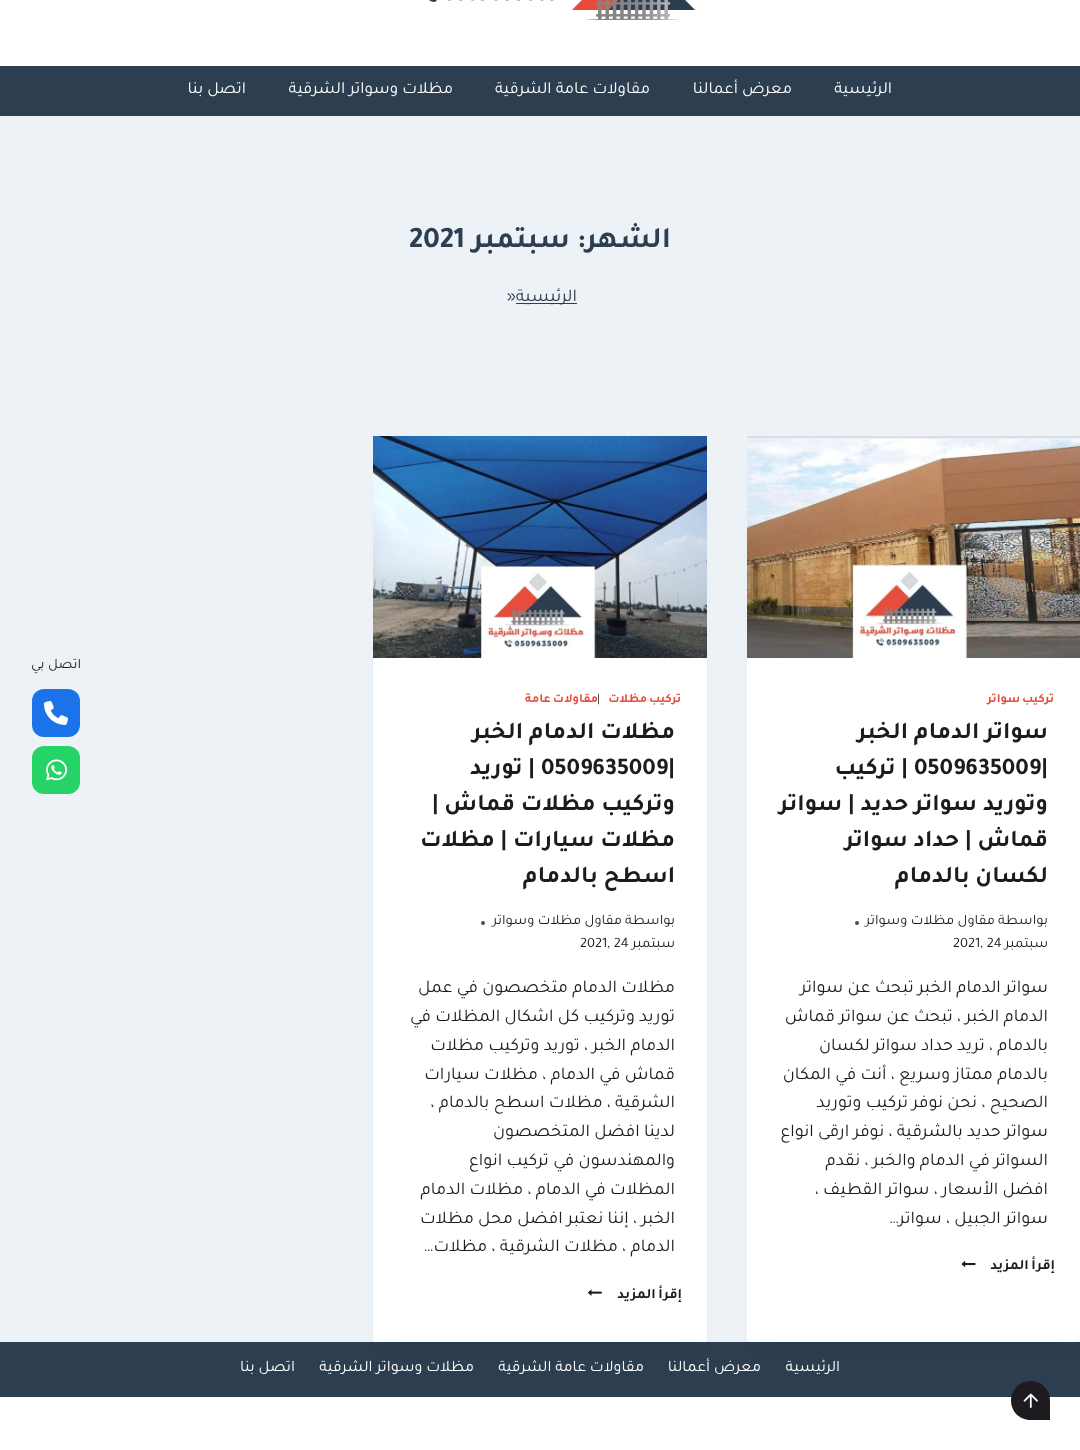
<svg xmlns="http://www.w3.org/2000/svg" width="1080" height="1450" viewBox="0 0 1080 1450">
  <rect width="100%" height="100%" fill="#edf2f7"/>
  <path d="M0 0h1080v66H0z" fill="#fff"/>
  <image x="429" y="0" width="266" height="20" href="img/1.png"/>
  <path d="M0 66h1080v50H0z" fill="#2c3e50"/>
  <path d="M516 303h61v1H516z" fill="#2c3e50"/>
  <path d="M0 1342h1080v55H0z" fill="#2c3e50"/>
  <path d="M757 461h313v886H757z" fill="#0000000d" filter="blur(7.5px)"/>
  <rect x="747" y="436" width="333" height="906" rx="4" fill="#fff"/>
  <image x="747" y="436" width="333" height="222" href="img/2.png"/>
  <circle cx="857" cy="923" r="2" fill="#4a494c"/>
  <image x="961" y="1261" width="15" height="6" href="img/3.png"/>
  <path d="M383 461h314v886H383z" fill="#0000000d" filter="blur(7.5px)"/>
  <rect x="373" y="436" width="334" height="906" rx="4" fill="#fff"/>
  <image x="373" y="436" width="334" height="222" href="img/4.png"/>
  <circle cx="483" cy="923" r="2" fill="#4a494c"/>
  <image x="588" y="1289" width="14" height="7" href="img/5.png"/>
  <path d="M0 1397h1080v53H0z" fill="#fff"/>
  <rect x="32" y="689" width="48" height="48" rx="12" fill="#1a73e8"/>
  <image x="44" y="701" width="24" height="24" href="img/6.png"/>
  <rect x="32" y="746" width="48" height="48" rx="12" fill="#25d366"/>
  <image x="46" y="759" width="21" height="22" href="img/7.png"/>
  <path d="M1030.5 1381C1041.5 1381 1050 1389.5 1050 1400.5V1420H1030.5C1019.5 1420 1011 1411.5 1011 1400.5C1011 1389.5 1019.5 1381 1030.5 1381Z" fill="#1d1b1f"/>
  <image x="1023" y="1393" width="15" height="15" href="img/8.png"/>
  <g font-family="Tajawal" font-size="17" direction="rtl" fill="#fff">
    <text x="892" y="93">الرئيسية</text>
    <text x="792" y="93">معرض أعمالنا</text>
    <text x="650" y="93">مقاولات عامة الشرقية</text>
    <text x="453" y="93">مظلات وسواتر الشرقية</text>
    <text x="246" y="93">اتصل بنا</text>
  </g>
  <text x="671" y="247" font-family="Tajawal" font-size="30" font-weight="bold" direction="rtl" fill="#2c3e50">الشهر: سبتمبر</text>
  <text x="409" y="247" font-family="Tajawal" font-size="30" font-weight="bold" fill="#2c3e50">2021</text>
  <text x="577" y="301" font-family="Tajawal" font-size="18" direction="rtl" fill="#2c3e50">الرئيسية</text>
  <text x="507" y="301" font-family="Tajawal" font-size="18" fill="#2c3e50">»</text>
  <text x="1054" y="702" word-spacing="-1" font-family="Tajawal" font-size="12.5" font-weight="bold" letter-spacing="0.6" direction="rtl" fill="#e74c3c">تركيب سواتر</text>
  <text x="1048" y="738" font-family="Tajawal" font-size="24" font-weight="bold" direction="rtl" fill="#1d1b1f">سواتر الدمام الخبر</text>
  <text x="914" y="774" font-family="Tajawal" font-size="24" font-weight="bold" fill="#1d1b1f">0509635009|</text>
  <g font-family="Tajawal" font-size="24" font-weight="bold" direction="rtl" fill="#1d1b1f">
    <text x="908" y="774">| تركيب</text>
    <text x="1048" y="810">وتوريد سواتر حديد | سواتر</text>
    <text x="1048" y="846">قماش | حداد سواتر</text>
    <text x="1048" y="882">لكسان بالدمام</text>
  </g>
  <g font-family="Tajawal" font-size="14.5" direction="rtl" fill="#1d1b1f">
    <text x="1048" y="924">بواسطة</text>
    <text x="995" y="924">مقاول مظلات وسواتر</text>
    <text x="1048" y="947">سبتمبر</text>
  </g>
  <text x="953" y="947" font-family="Tajawal" font-size="14.5" fill="#1d1b1f">2021, 24</text>
  <g font-family="Tajawal" font-size="18" direction="rtl" fill="#1d1b1f">
    <text x="1048" y="992">سواتر الدمام الخبر تبحث عن سواتر</text>
    <text x="1048" y="1021">الدمام الخبر ، تبحث عن سواتر قماش</text>
    <text x="1048" y="1050">بالدمام ، تريد حداد سواتر لكسان</text>
    <text x="1048" y="1079">بالدمام ممتاز وسريع ، أنت في المكان</text>
    <text x="1048" y="1107">الصحيح ، نحن نوفر تركيب وتوريد</text>
    <text x="1048" y="1136">سواتر حديد بالشرقية ، نوفر ارقى انواع</text>
    <text x="1048" y="1165">السواتر في الدمام والخبر ، نقدم</text>
    <text x="1048" y="1194">افضل الأسعار ، سواتر القطيف ،</text>
    <text x="1048" y="1223">سواتر الجبيل ، سواتر…</text>
  </g>
  <text x="1055" y="1269" word-spacing="-1" font-family="Tajawal" font-size="14.5" font-weight="bold" letter-spacing="0.75" direction="rtl" fill="#1d1b1f">إقرأ المزيد</text>
  <text x="681" y="702" word-spacing="-1" font-family="Tajawal" font-size="12.5" font-weight="bold" letter-spacing="0.6" direction="rtl" fill="#e74c3c">تركيب مظلات</text>
  <text x="597" y="702" font-family="Tajawal" font-size="12.5" letter-spacing="0.6" fill="#1d1b1f">|</text>
  <text x="598" y="702" word-spacing="-1" font-family="Tajawal" font-size="12.5" font-weight="bold" letter-spacing="0.6" direction="rtl" fill="#e74c3c">مقاولات عامة</text>
  <text x="675" y="738" font-family="Tajawal" font-size="24" font-weight="bold" direction="rtl" fill="#1d1b1f">مظلات الدمام الخبر</text>
  <text x="541" y="774" font-family="Tajawal" font-size="24" font-weight="bold" fill="#1d1b1f">0509635009|</text>
  <g font-family="Tajawal" font-size="24" font-weight="bold" direction="rtl" fill="#1d1b1f">
    <text x="535" y="774">| توريد</text>
    <text x="675" y="810">وتركيب مظلات قماش |</text>
    <text x="675" y="846">مظلات سيارات | مظلات</text>
    <text x="675" y="882">اسطح بالدمام</text>
  </g>
  <g font-family="Tajawal" font-size="14.5" direction="rtl" fill="#1d1b1f">
    <text x="675" y="924">بواسطة</text>
    <text x="622" y="924">مقاول مظلات وسواتر</text>
    <text x="675" y="947">سبتمبر</text>
  </g>
  <text x="580" y="947" font-family="Tajawal" font-size="14.5" fill="#1d1b1f">2021, 24</text>
  <g font-family="Tajawal" font-size="18" direction="rtl" fill="#1d1b1f">
    <text x="675" y="992">مظلات الدمام متخصصون في عمل</text>
    <text x="675" y="1021">توريد وتركيب كل اشكال المظلات في</text>
    <text x="675" y="1050">الدمام الخبر ، توريد وتركيب مظلات</text>
    <text x="675" y="1079">قماش في الدمام ، مظلات سيارات</text>
    <text x="675" y="1107">الشرقية ، مظلات اسطح بالدمام ،</text>
    <text x="675" y="1136">لدينا افضل المتخصصون</text>
    <text x="675" y="1165">والمهندسون في تركيب انواع</text>
    <text x="675" y="1194">المظلات في الدمام ، مظلات الدمام</text>
    <text x="675" y="1223">الخبر ، إننا نعتبر افضل محل مظلات</text>
    <text x="675" y="1251">الدمام ، مظلات الشرقية ، مظلات…</text>
  </g>
  <text x="682" y="1298" word-spacing="-1" font-family="Tajawal" font-size="14.5" font-weight="bold" letter-spacing="0.75" direction="rtl" fill="#1d1b1f">إقرأ المزيد</text>
  <g font-family="Tajawal" font-size="16" direction="rtl" fill="#fff">
    <text x="840" y="1371">الرئيسية</text>
    <text x="761" y="1371">معرض أعمالنا</text>
    <text x="644" y="1371">مقاولات عامة الشرقية</text>
    <text x="474" y="1371">مظلات وسواتر الشرقية</text>
    <text x="295" y="1371">اتصل بنا</text>
  </g>
  <text x="81" y="668" font-family="Tajawal" font-size="14.5" direction="rtl" fill="#1d1b1f">اتصل بي</text>
</svg>
